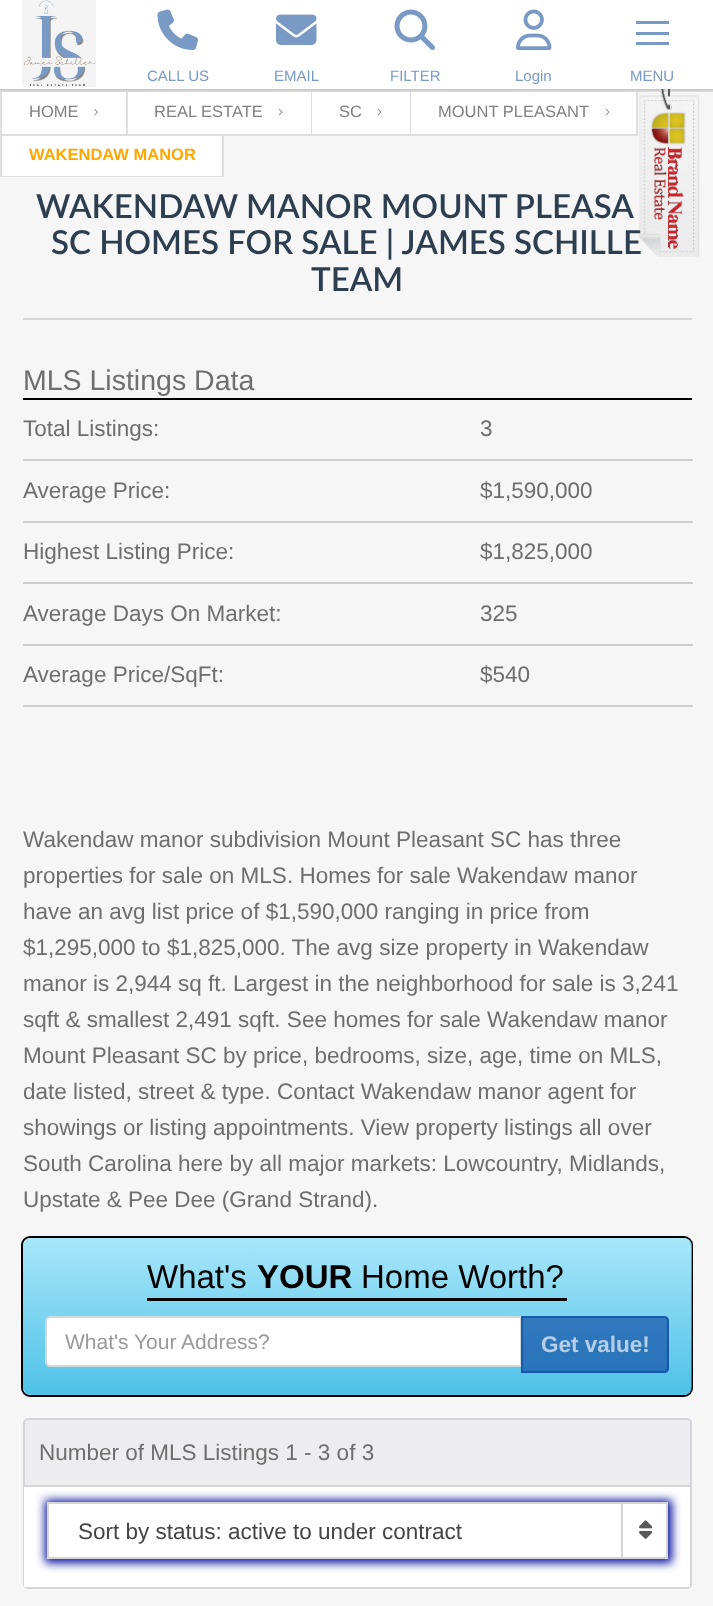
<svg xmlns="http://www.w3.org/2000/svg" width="713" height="1606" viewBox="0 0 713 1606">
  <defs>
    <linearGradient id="g1" gradientUnits="userSpaceOnUse" x1="357" y1="1238" x2="357" y2="1395"><stop offset="0" stop-color="#87e0fd" stop-opacity="0.7"/><stop offset="0.4" stop-color="#53cbf1" stop-opacity="0.7"/><stop offset="1" stop-color="#05abe0" stop-opacity="0.7"/></linearGradient>
  </defs>
  <rect width="100%" height="100%" fill="#f6f6f6"/>
  <path d="M0 91h713v1H0z" fill="#dedede"/>
  <path d="M126 90h2v45H126z" fill="#dedede"/>
  <path d="M311 90h1v45H311z" fill="#dedede"/>
  <path d="M410 90h1v45H410z" fill="#dedede"/>
  <path d="M636 90h2v45H636z" fill="#dedede"/>
  <path d="M0 89h713v2H0z" fill="#ccc"/>
  <path d="M0 0h713v89H0z" fill="#fff"/>
  <image x="22" y="0" width="74" height="87" href="img/1.png"/>
  <image x="157" y="9" width="41" height="42" href="img/2.png"/>
  <image x="276" y="14" width="41" height="31" href="img/3.png"/>
  <image x="394" y="9" width="41" height="41" href="img/4.png"/>
  <image x="516" y="9" width="36" height="42" href="img/5.png"/>
  <path d="M636 32h33v3H636z" fill="#799ac4"/>
  <path d="M636 21h33v3H636z" fill="#799ac4"/>
  <path d="M636 42h33v3H636z" fill="#799ac4"/>
  <path d="M0 92h2v85H0z" fill="#dedede"/>
  <path d="M2 92h124v42H2z" fill="#fff"/>
  <image x="94" y="109" width="4" height="7" href="img/7.png"/>
  <path d="M128 92h183v42H128z" fill="#fff"/>
  <path d="M2 134h310v2H2z" fill="#dedede"/>
  <image x="278" y="109" width="5" height="7" href="img/8.png"/>
  <path d="M312 92h98v42H312z" fill="#fff"/>
  <path d="M312 134h99v2H312z" fill="#dedede"/>
  <image x="377" y="109" width="5" height="7" href="img/8.png"/>
  <path d="M411 92h225v42H411z" fill="#fff"/>
  <path d="M411 134h227v2H411z" fill="#dedede"/>
  <image x="605" y="109" width="5" height="7" href="img/8.png"/>
  <path d="M2 136h220v40H2z" fill="#fff"/>
  <path d="M222 134h2v43H222z" fill="#dedede"/>
  <path d="M2 176h222v1H2z" fill="#dedede"/>
  <path d="M23 318h669v2H23z" fill="#d6d6d6"/>
  <path d="M23 398h669v2H23z" fill="#000"/>
  <path d="M23 459h670v2H23z" fill="#cdcdcd"/>
  <path d="M23 521h670v2H23z" fill="#cdcdcd"/>
  <path d="M23 582h670v2H23z" fill="#cdcdcd"/>
  <path d="M23 644h670v2H23z" fill="#cdcdcd"/>
  <path d="M23 705h670v2H23z" fill="#cdcdcd"/>
  <rect x="22" y="1237" width="670" height="159" rx="8" fill="none" stroke="#000" stroke-width="2"/>
  <rect x="23" y="1238" width="669" height="157" rx="8" fill="url(#g1)"/>
  <path d="M147 1298h420v3H147z" fill="#000"/>
  <path d="M50 1317H521V1366H50C48 1366 46 1364 46 1362V1321C46 1319 48 1317 50 1317Z" fill="#fff" stroke="#cfdadd" stroke-width="2"/>
  <path d="M521 1316H664C667 1316 669 1318 669 1321V1368C669 1371 667 1373 664 1373H521Z" fill="#0d47a1a6"/>
  <path d="M522 1317H664C666 1317 668 1319 668 1321V1368C668 1370 666 1372 664 1372H522Z" fill="none" stroke="#0d47a1a6" stroke-width="2"/>
  <rect x="24" y="1419" width="667" height="169" rx="4" fill="#ededef" stroke="#d3d5d9" stroke-width="2"/>
  <path d="M24 1485h666v2H24z" fill="#d3d5d9"/>
  <path d="M24 1487h666v100H24z" fill="#fff"/>
  <path d="M45 1500h627v63H45z" fill="#06109b" filter="blur(5px)"/>
  <path d="M48 1503h619v55H48z" fill="#fff" stroke="#d6d6d6" stroke-width="2"/>
  <path d="M621 1503h2v54H621z" fill="#d6d6d6"/>
  <image x="639" y="1520" width="14" height="19" href="img/9.png"/>
  <g font-family="Liberation Sans" font-size="15" fill="#799ac4">
    <text x="147" y="81">CALL US</text>
    <text x="274" y="81">EMAIL</text>
    <text x="390" y="81">FILTER</text>
    <text x="515" y="81">Login</text>
    <text x="630" y="81">MENU</text>
  </g>
  <g font-family="Liberation Sans" font-size="16.5" fill="#808080">
    <text x="29" y="117">HOME</text>
    <text x="154" y="117">REAL ESTATE</text>
    <text x="339" y="117">SC</text>
    <text x="438" y="117">MOUNT PLEASANT</text>
  </g>
  <text x="29" y="160" font-family="Liberation Sans" font-size="16.5" font-weight="bold" fill="#ffa700">WAKENDAW MANOR</text>
  <g font-family="Lato" font-size="33" font-weight="600" fill="#2c3e50">
    <text x="36" y="218">WAKENDAW MANOR MOUNT PLEASA</text>
    <text x="51" y="254">SC HOMES FOR SALE | JAMES SCHILLE</text>
  </g>
  <image x="639" y="89" width="61" height="168" href="img/6.png"/>
  <text x="311" y="291" font-family="Lato" font-size="33" font-weight="600" fill="#2c3e50">TEAM</text>
  <text x="23" y="390" font-family="Liberation Sans" font-size="28.5" fill="#6e6e6e">MLS Listings Data</text>
  <g font-family="Liberation Sans" font-size="22.5" fill="#6e6e6e">
    <text x="23" y="436">Total Listings:</text>
    <text x="480" y="436">3</text>
    <text x="23" y="498">Average Price:</text>
    <text x="480" y="498">$1,590,000</text>
    <text x="23" y="559">Highest Listing Price:</text>
    <text x="480" y="559">$1,825,000</text>
    <text x="23" y="621">Average Days On Market:</text>
    <text x="480" y="621">325</text>
    <text x="23" y="682">Average Price/SqFt:</text>
    <text x="480" y="682">$540</text>
    <text x="23" y="847">Wakendaw manor subdivision Mount Pleasant SC has three</text>
    <text x="23" y="883">properties for sale on MLS. Homes for sale Wakendaw manor</text>
    <text x="23" y="919">have an avg list price of $1,590,000 ranging in price from</text>
    <text x="23" y="955">$1,295,000 to $1,825,000. The avg size property in Wakendaw</text>
    <text x="23" y="991">manor is 2,944 sq ft. Largest in the neighborhood for sale is 3,241</text>
    <text x="23" y="1027">sqft &amp; smallest 2,491 sqft. See homes for sale Wakendaw manor</text>
    <text x="23" y="1063">Mount Pleasant SC by price, bedrooms, size, age, time on MLS,</text>
    <text x="23" y="1099">date listed, street &amp; type. Contact Wakendaw manor agent for</text>
    <text x="23" y="1135">showings or listing appointments. View property listings all over</text>
    <text x="23" y="1171">South Carolina here by all major markets: Lowcountry, Midlands,</text>
    <text x="23" y="1207">Upstate &amp; Pee Dee (Grand Strand).</text>
  </g>
  <text x="147" y="1288" font-family="Liberation Sans" font-size="33" fill="#000">What's</text>
  <text x="257" y="1288" font-family="Liberation Sans" font-size="33" font-weight="bold" fill="#000">YOUR</text>
  <text x="361" y="1288" font-family="Liberation Sans" font-size="33" fill="#000">Home Worth?</text>
  <text x="65" y="1349" font-family="Liberation Sans" font-size="21" fill="#999">What's Your Address?</text>
  <text x="541" y="1352" font-family="Liberation Sans" font-size="22.5" font-weight="bold" fill="#b6cfe7">Get value!</text>
  <text x="39" y="1460" font-family="Liberation Sans" font-size="22.5" fill="#6e6e6e">Number of MLS Listings 1 - 3 of 3</text>
  <text x="78" y="1539" font-family="Liberation Sans" font-size="22.5" fill="#444">Sort by status: active to under contract</text>
</svg>
